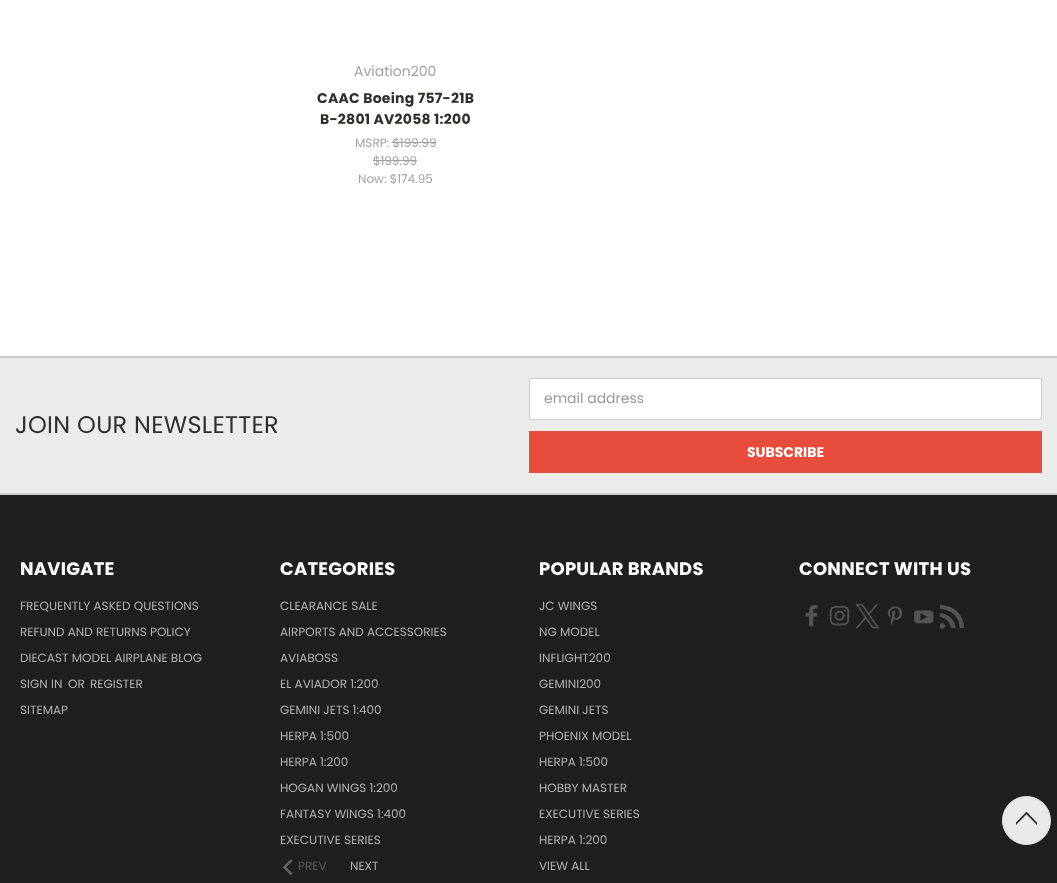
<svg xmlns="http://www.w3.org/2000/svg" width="1057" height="883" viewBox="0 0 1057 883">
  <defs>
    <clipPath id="clip1"><path d="M1037 811.5V832.5H1016V811.5Z"/></clipPath>
  </defs>
  <rect width="100%" height="100%" fill="#fff"/>
  <path d="M392 142h44v1H392z" fill="#a2a2a2"/>
  <path d="M373 160h44v1H373z" fill="#a2a2a2"/>
  <path d="M0 358h1057v135H0z" fill="#ebebeb"/>
  <path d="M0 356h1057v2H0z" fill="#cdcccc"/>
  <path d="M529.5 378.5h512v41H529.5z" fill="#fff" stroke="#ccc"/>
  <path d="M529 431h513v42H529z" fill="#e74c3c"/>
  <path d="M0 495h1057v388H0z" fill="#1f1f1f"/>
  <path d="M0 493h1057v2H0z" fill="#cdcccc"/>
  <image x="283" y="859" width="10" height="16" href="img/1.png"/>
  <image x="805" y="605" width="13" height="22" href="img/2.png"/>
  <image x="829" y="605" width="21" height="21" href="img/3.png"/>
  <image x="855" y="603" width="25" height="26" href="img/4.png"/>
  <image x="887" y="606" width="15" height="19" href="img/5.png"/>
  <image x="914" y="610" width="20" height="14" href="img/6.png"/>
  <image x="940" y="605" width="25" height="24" href="img/7.png"/>
  <circle cx="1026.5" cy="820.5" r="24" fill="#e9e9e9" stroke="#e4e3e1"/>
  <g clip-path="url(#clip1)">
    <path d="M1044 831L1026.5 813L1009 831" fill="none" stroke="#313131" stroke-width="1.8" stroke-linecap="round" stroke-linejoin="round"/>
  </g>
  <text x="354" y="76" font-family="Poppins" font-size="14" fill="#a2a2a2">Aviation200</text>
  <g font-family="Poppins" font-size="14" font-weight="bold" letter-spacing="0.25" fill="#2f2f2b">
    <text x="317" y="103">CAAC Boeing 757-21B</text>
    <text x="320" y="124">B-2801 AV2058 1:200</text>
  </g>
  <g font-family="Poppins" font-size="12" fill="#a2a2a2">
    <text x="355" y="147">MSRP: $199.99</text>
    <text x="373" y="165">$199.99</text>
    <text x="358" y="183">Now: $174.95</text>
  </g>
  <text x="15" y="433" font-family="Poppins" font-size="24" letter-spacing="0.25" fill="#2f2f2b">JOIN OUR NEWSLETTER</text>
  <text x="544" y="403" font-family="Poppins" font-size="14" fill="#999">email address</text>
  <text x="747" y="457" font-family="Poppins" font-size="14" font-weight="bold" fill="#fff">SUBSCRIBE</text>
  <text x="20" y="575" font-family="Poppins" font-size="18" font-weight="bold" letter-spacing="0.25" fill="#fff">NAVIGATE</text>
  <g font-family="Poppins" font-size="12" fill="#b2b2b2">
    <text x="20" y="610">FREQUENTLY ASKED QUESTIONS</text>
    <text x="20" y="636">REFUND AND RETURNS POLICY</text>
    <text x="20" y="662">DIECAST MODEL AIRPLANE BLOG</text>
    <text x="20" y="688">SIGN IN</text>
    <text x="68" y="688">OR</text>
    <text x="90" y="688">REGISTER</text>
    <text x="20" y="714">SITEMAP</text>
  </g>
  <text x="280" y="575" font-family="Poppins" font-size="18" font-weight="bold" letter-spacing="0.25" fill="#fff">CATEGORIES</text>
  <g font-family="Poppins" font-size="12" fill="#b2b2b2">
    <text x="280" y="610">CLEARANCE SALE</text>
    <text x="280" y="636">AIRPORTS AND ACCESSORIES</text>
    <text x="280" y="662">AVIABOSS</text>
    <text x="280" y="688">EL AVIADOR 1:200</text>
    <text x="280" y="714">GEMINI JETS 1:400</text>
    <text x="280" y="740">HERPA 1:500</text>
    <text x="280" y="766">HERPA 1:200</text>
    <text x="280" y="792">HOGAN WINGS 1:200</text>
    <text x="280" y="818">FANTASY WINGS 1:400</text>
    <text x="280" y="844">EXECUTIVE SERIES</text>
  </g>
  <text x="298" y="870" font-family="Poppins" font-size="12" fill="#5a5a5a">PREV</text>
  <text x="350" y="870" font-family="Poppins" font-size="12" fill="#b2b2b2">NEXT</text>
  <text x="539" y="575" font-family="Poppins" font-size="18" font-weight="bold" letter-spacing="0.25" fill="#fff">POPULAR BRANDS</text>
  <g font-family="Poppins" font-size="12" fill="#b2b2b2">
    <text x="539" y="610">JC WINGS</text>
    <text x="539" y="636">NG MODEL</text>
    <text x="539" y="662">INFLIGHT200</text>
    <text x="539" y="688">GEMINI200</text>
    <text x="539" y="714">GEMINI JETS</text>
    <text x="539" y="740">PHOENIX MODEL</text>
    <text x="539" y="766">HERPA 1:500</text>
    <text x="539" y="792">HOBBY MASTER</text>
    <text x="539" y="818">EXECUTIVE SERIES</text>
    <text x="539" y="844">HERPA 1:200</text>
    <text x="539" y="870">VIEW ALL</text>
  </g>
  <text x="799" y="575" font-family="Poppins" font-size="18" font-weight="bold" letter-spacing="0.25" fill="#fff">CONNECT WITH US</text>
</svg>
